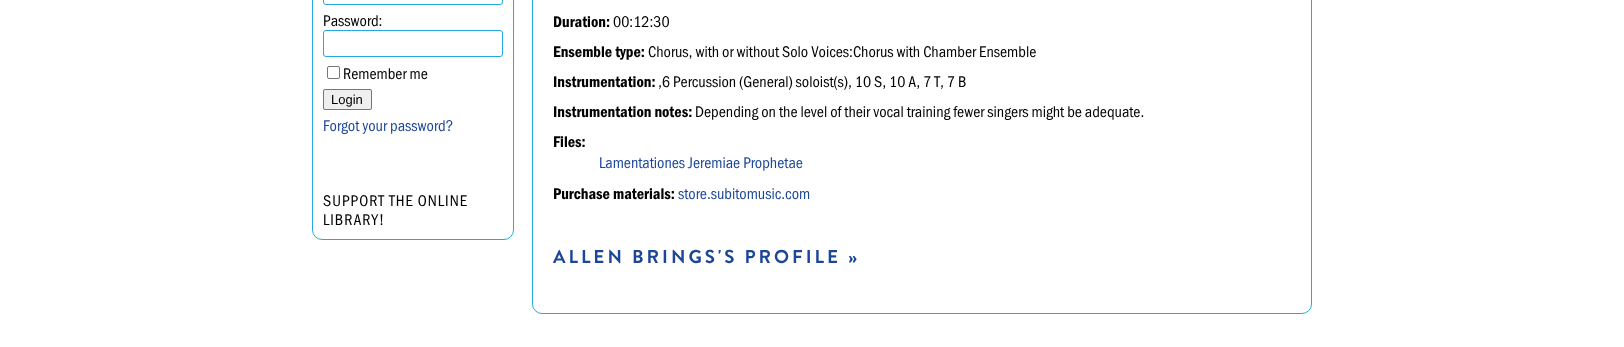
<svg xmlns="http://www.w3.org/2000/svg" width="1624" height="347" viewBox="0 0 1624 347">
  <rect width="100%" height="100%" fill="#fff"/>
  <rect x="312.5" y="-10.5" width="201" height="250" rx="9.5" fill="none" stroke="#26a9e0"/>
  <rect x="323.5" y="-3.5" width="179" height="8" rx="2.5" fill="none" stroke="#26a9e0"/>
  <rect x="323.5" y="30.5" width="179" height="26" rx="2.5" fill="none" stroke="#26a9e0"/>
  <rect x="327.5" y="66.5" width="12" height="12" rx="1.5" fill="none" stroke="#767676"/>
  <rect x="323.5" y="89.5" width="48" height="20" rx="1.5" fill="#efefef" stroke="#767676"/>
  <rect x="532.5" y="-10.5" width="779" height="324" rx="9.5" fill="none" stroke="#26a9e0"/>
  <g font-family="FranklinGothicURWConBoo" font-size="16" fill="#000">
    <text x="323" y="26">Password:</text>
    <text x="343" y="79">Remember me</text>
  </g>
  <text x="331" y="104" font-family="Liberation Sans" font-size="13" fill="#000">Login</text>
  <text x="323" y="131" font-family="FranklinGothicURWConBoo" font-size="16" fill="#1c4796">Forgot your password?</text>
  <g font-family="FranklinGothicURWConBoo" font-size="16" letter-spacing="1" fill="#000">
    <text x="323" y="206">SUPPORT THE ONLINE</text>
    <text x="323" y="225">LIBRARY!</text>
  </g>
  <text x="553" y="27" font-family="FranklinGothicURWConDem" font-size="16" fill="#000">Duration:</text>
  <text x="613" y="27" font-family="FranklinGothicURWConBoo" font-size="16" fill="#000">00:12:30</text>
  <text x="553" y="57" font-family="FranklinGothicURWConDem" font-size="16" fill="#000">Ensemble type:</text>
  <text x="648" y="57" font-family="FranklinGothicURWConBoo" font-size="16" fill="#000">Chorus, with or without Solo Voices:Chorus with Chamber Ensemble</text>
  <text x="553" y="87" font-family="FranklinGothicURWConDem" font-size="16" fill="#000">Instrumentation:</text>
  <text x="658" y="87" font-family="FranklinGothicURWConBoo" font-size="16" fill="#000">,6 Percussion (General) soloist(s), 10 S, 10 A, 7 T, 7 B</text>
  <text x="553" y="117" font-family="FranklinGothicURWConDem" font-size="16" fill="#000">Instrumentation notes:</text>
  <text x="695" y="117" font-family="FranklinGothicURWConBoo" font-size="16" fill="#000">Depending on the level of their vocal training fewer singers might be adequate.</text>
  <text x="553" y="147" font-family="FranklinGothicURWConDem" font-size="16" fill="#000">Files:</text>
  <text x="599" y="168" font-family="FranklinGothicURWConBoo" font-size="16" fill="#1c4796">Lamentationes Jeremiae Prophetae</text>
  <text x="553" y="199" font-family="FranklinGothicURWConDem" font-size="16" fill="#000">Purchase materials:</text>
  <text x="678" y="199" font-family="FranklinGothicURWConBoo" font-size="16" fill="#1c4796">store.subitomusic.com</text>
  <text x="553" y="263" font-family="Brandon Grotesque" font-size="18.75" font-weight="bold" letter-spacing="3" fill="#1c4796">ALLEN BRINGS'S PROFILE »</text>
</svg>
